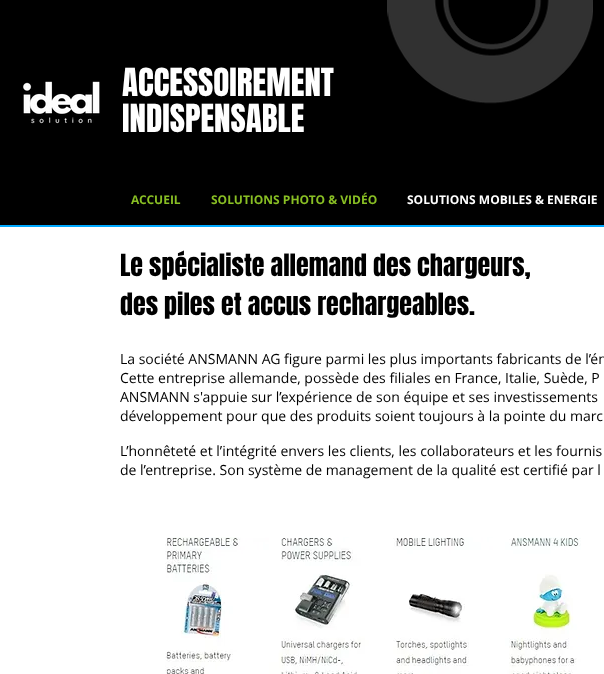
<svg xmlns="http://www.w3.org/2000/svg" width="604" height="674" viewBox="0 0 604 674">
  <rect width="100%" height="100%" fill="#fff"/>
  <path d="M0 0h604v225H0z" fill="#000"/>
  <path d="M0 225h604v2H0z" fill="#00a9ff"/>
  <image x="23" y="81" width="77" height="43" href="img/1.png"/>
  <image x="387" y="0" width="206" height="104" href="img/2.png"/>
  <image x="165" y="537" width="416" height="137" href="img/3.png"/>
  <g font-family="Anton" font-size="33" fill="#fff">
    <text x="122" y="96">ACCESSOIREMENT</text>
    <text x="122" y="132">INDISPENSABLE</text>
  </g>
  <g font-family="Open Sans" font-size="12" font-weight="bold" fill="#89bf24">
    <text x="131" y="204">ACCUEIL</text>
    <text x="211" y="204">SOLUTIONS PHOTO &amp; VIDÉO</text>
  </g>
  <text x="407" y="204" font-family="Open Sans" font-size="12" font-weight="bold" fill="#fff">SOLUTIONS MOBILES &amp; ENERGIE</text>
  <g font-family="Anton" font-size="26" fill="#000">
    <text x="120" y="276">Le spécialiste allemand des chargeurs,</text>
    <text x="120" y="315">des piles et accus rechargeables.</text>
  </g>
  <g font-family="Open Sans" font-size="14" fill="#000">
    <text x="120" y="364">La société ANSMANN AG figure parmi les plus importants fabricants de l’én</text>
    <text x="120" y="383">Cette entreprise allemande, possède des filiales en France, Italie, Suède, P</text>
    <text x="120" y="402">ANSMANN s'appuie sur l’expérience de son équipe et ses investissements</text>
    <text x="120" y="421">développement pour que des produits soient toujours à la pointe du marc</text>
    <text x="120" y="456">L’honnêteté et l’intégrité envers les clients, les collaborateurs et les fournis</text>
    <text x="120" y="475">de l’entreprise. Son système de management de la qualité est certifié par l</text>
  </g>
</svg>
